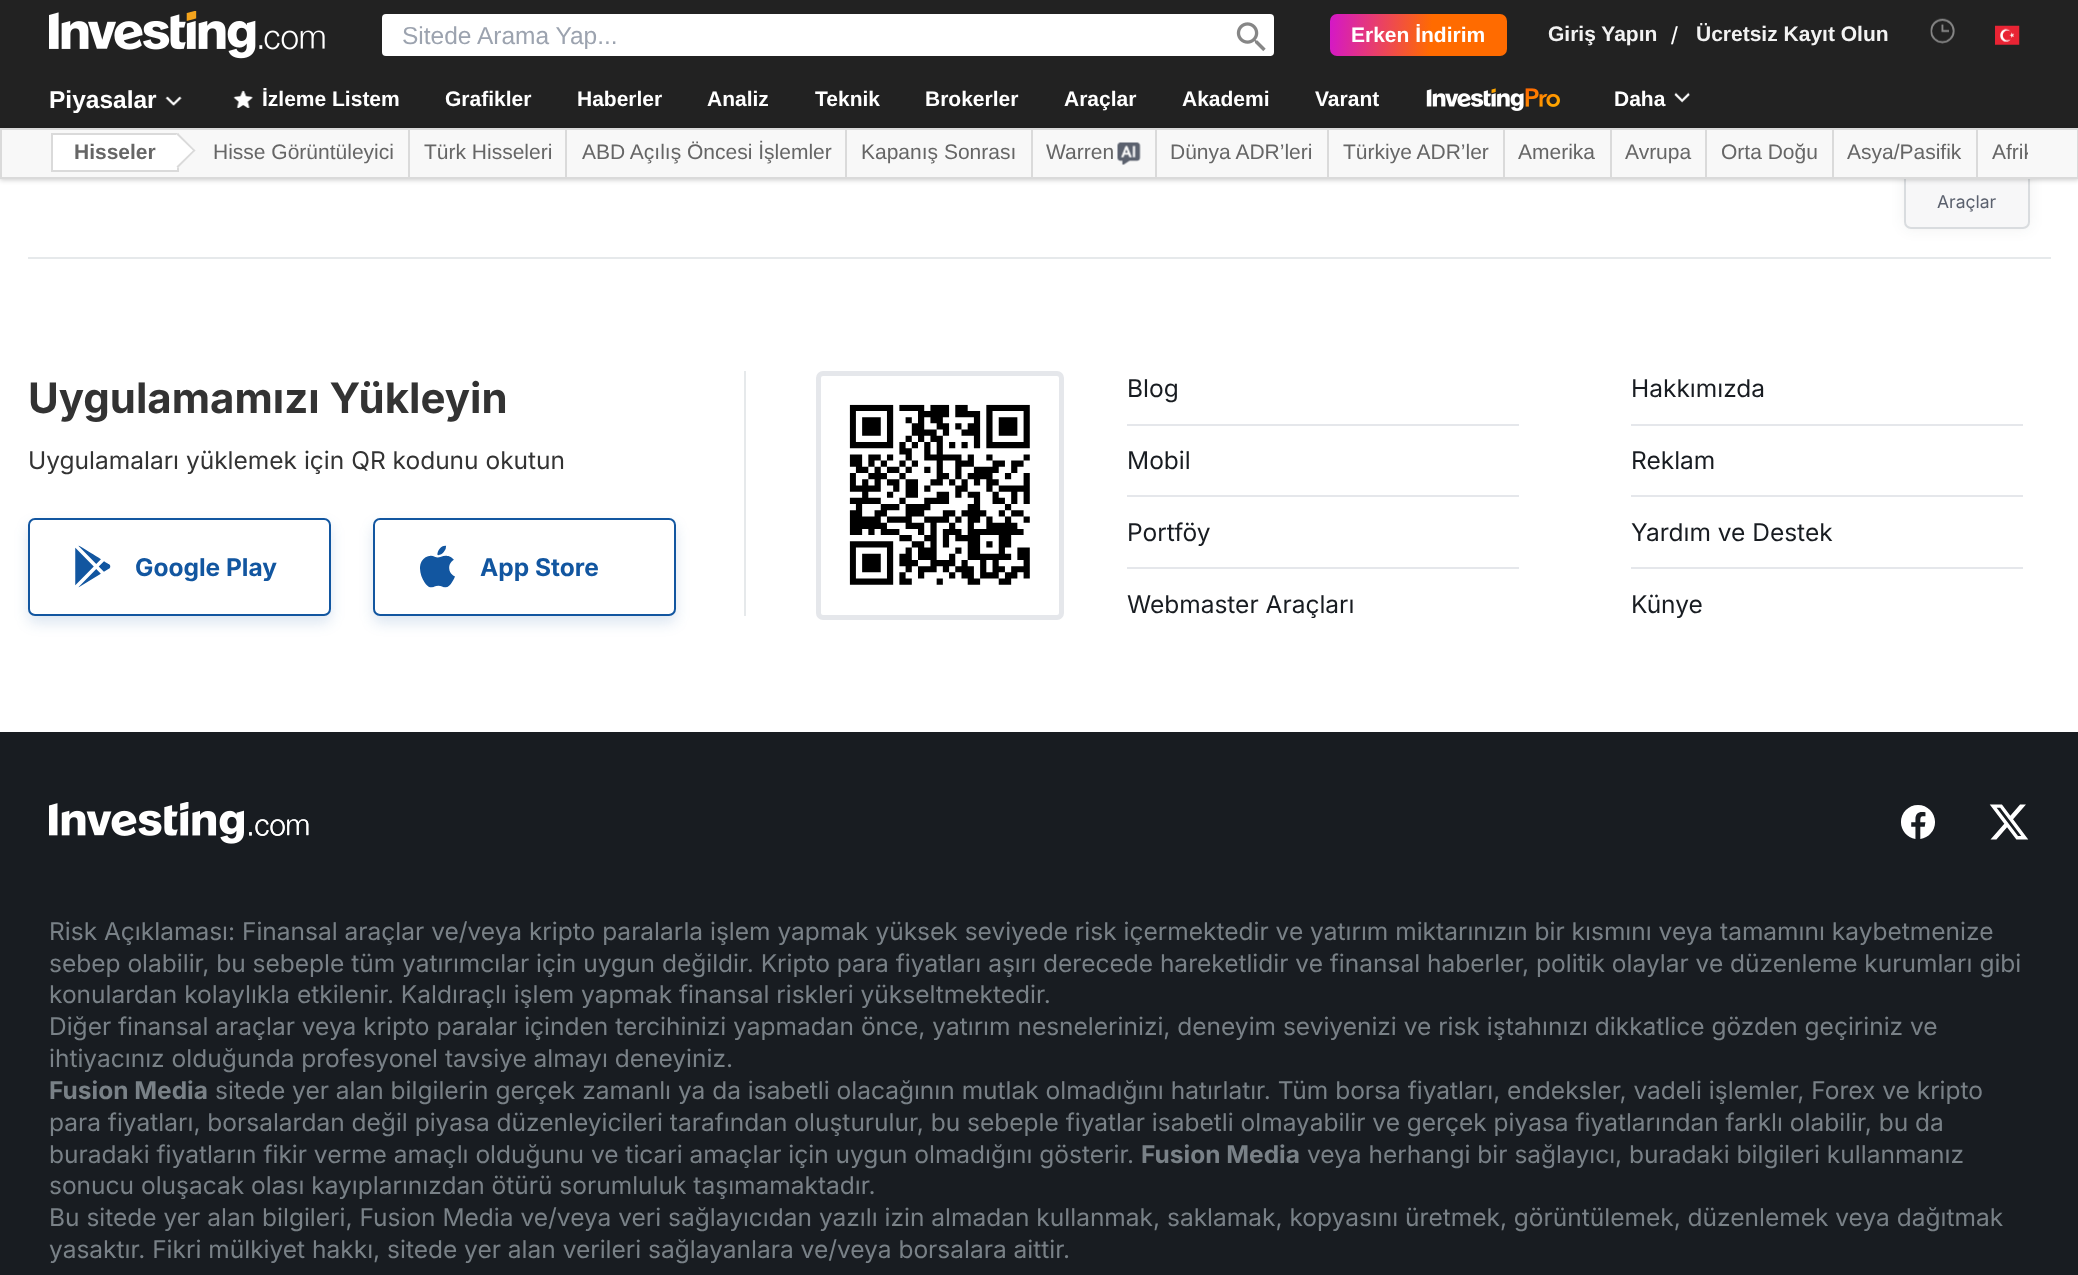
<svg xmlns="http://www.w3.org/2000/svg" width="2078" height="1275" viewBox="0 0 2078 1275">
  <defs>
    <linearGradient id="g1" gradientUnits="userSpaceOnUse" x1="1508" y1="41" x2="1301" y2="27"><stop offset="0.37" stop-color="#ff6b00"/><stop offset="1" stop-color="#c800ff"/></linearGradient>
    <clipPath id="clip1"><path d="M403 21h801v28H403z"/></clipPath>
    <clipPath id="clip2"><path d="M51 130h1977v47H51z"/></clipPath>
  </defs>
  <rect width="100%" height="100%" fill="#fff"/>
  <rect x="1904" y="-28" width="126" height="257" rx="7" fill="#23252612" filter="blur(7px)"/>
  <rect x="1905" y="-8" width="124" height="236" rx="6" fill="#f7f7f8" stroke="#d9dcdf" stroke-width="2"/>
  <path d="M0 0h2078v128H0z" fill="#222"/>
  <image x="49" y="11" width="276" height="48" href="img/1.png"/>
  <rect x="382" y="14" width="892" height="42" rx="4" fill="#fff"/>
  <image x="1236" y="22" width="30" height="30" href="img/2.png"/>
  <rect x="1330" y="14" width="177" height="42" rx="7" fill="url(#g1)"/>
  <image x="1930" y="18" width="25" height="26" href="img/3.png"/>
  <image x="1995" y="25" width="25" height="20" href="img/4.png"/>
  <image x="165" y="96" width="17" height="10" href="img/5.png"/>
  <image x="233" y="90" width="20" height="18" href="img/6.png"/>
  <image x="1426" y="88" width="134" height="23" href="img/7.png"/>
  <image x="1674" y="92" width="16" height="11" href="img/8.png"/>
  <path d="M0 130h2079v50H0z" fill="#00000033" filter="blur(2.5px)"/>
  <path d="M1 129h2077v49H1z" fill="#f8f8f8" stroke="#dadada" stroke-width="2"/>
  <path d="M52 134h126v37H52z" fill="#fff" stroke="#dadada" stroke-width="2"/>
  <path d="M178 133L195.5 150.5L178 168L160.5 150.5Z" fill="#fff"/>
  <path d="M178 133L195.5 150.5L194 151.5L176.5 134.5Z" fill="#dadada"/>
  <path d="M194 149.5L195.5 150.5L178 168L176.5 166.5Z" fill="#dadada"/>
  <path d="M408 130h2v47H408z" fill="#dadada"/>
  <path d="M565 130h2v47H565z" fill="#dadada"/>
  <path d="M845 130h2v47H845z" fill="#dadada"/>
  <path d="M1031 130h2v47H1031z" fill="#dadada"/>
  <path d="M1155 130h2v47H1155z" fill="#dadada"/>
  <image x="1117" y="142" width="24" height="23" href="img/9.png"/>
  <path d="M1327 130h2v47H1327z" fill="#dadada"/>
  <path d="M1503 130h2v47H1503z" fill="#dadada"/>
  <path d="M1610 130h2v47H1610z" fill="#dadada"/>
  <path d="M1705 130h2v47H1705z" fill="#dadada"/>
  <path d="M1832 130h2v47H1832z" fill="#dadada"/>
  <path d="M1976 130h2v47H1976z" fill="#dadada"/>
  <path d="M28 257h2023v2H28z" fill="#e6e9eb"/>
  <path d="M744 371h2v245H744z" fill="#e6e9eb"/>
  <rect x="28" y="525" width="303" height="98" rx="7" fill="#1256a026" filter="blur(7px)"/>
  <rect x="29" y="519" width="301" height="96" rx="6" fill="#fff" stroke="#1256a0" stroke-width="2"/>
  <image x="75" y="545" width="36" height="43" href="img/10.png"/>
  <rect x="373" y="525" width="303" height="98" rx="7" fill="#1256a026" filter="blur(7px)"/>
  <rect x="374" y="519" width="301" height="96" rx="6" fill="#fff" stroke="#1256a0" stroke-width="2"/>
  <image x="420" y="545" width="35" height="43" href="img/11.png"/>
  <rect x="818.5" y="373.5" width="243" height="244" rx="4.5" fill="none" stroke="#e5e7eb" stroke-width="5"/>
  <image x="849" y="404" width="181" height="181" href="img/12.png"/>
  <path d="M1127 424h392v2H1127z" fill="#e5e7eb"/>
  <path d="M1127 495h392v2H1127z" fill="#e5e7eb"/>
  <path d="M1127 567h392v2H1127z" fill="#e5e7eb"/>
  <path d="M1631 424h392v2H1631z" fill="#e5e7eb"/>
  <path d="M1631 495h392v2H1631z" fill="#e5e7eb"/>
  <path d="M1631 567h392v2H1631z" fill="#e5e7eb"/>
  <path d="M0 732h2078v543H0z" fill="#181c21"/>
  <image x="49" y="802" width="260" height="42" href="img/13.png"/>
  <image x="1901" y="805" width="34" height="34" href="img/14.png"/>
  <image x="1989" y="804" width="40" height="36" href="img/15.png"/>
  <g clip-path="url(#clip1)">
    <text x="402" y="44" font-family="Liberation Sans" font-size="24.5" fill="#9ca3af">Sitede Arama Yap...</text>
  </g>
  <text x="1351" y="42" font-family="Liberation Sans" font-size="21" font-weight="bold" fill="#fff">Erken İndirim</text>
  <text x="1548" y="41" font-family="Liberation Sans" font-size="21" font-weight="bold" fill="#f2f2f2">Giriş Yapın</text>
  <text x="1671" y="44" font-family="Liberation Sans" font-size="24.5" fill="#fff">/</text>
  <text x="1696" y="41" font-family="Liberation Sans" font-size="21" font-weight="bold" fill="#f2f2f2">Ücretsiz Kayıt Olun</text>
  <text x="49" y="108" font-family="Liberation Sans" font-size="24.5" font-weight="bold" fill="#fff">Piyasalar</text>
  <g font-family="Liberation Sans" font-size="21" font-weight="bold" fill="#fff">
    <text x="262" y="106">İzleme Listem</text>
    <text x="445" y="106">Grafikler</text>
    <text x="577" y="106">Haberler</text>
    <text x="707" y="106">Analiz</text>
    <text x="815" y="106">Teknik</text>
    <text x="925" y="106">Brokerler</text>
    <text x="1064" y="106">Araçlar</text>
    <text x="1182" y="106">Akademi</text>
    <text x="1315" y="106">Varant</text>
    <text x="1614" y="106">Daha</text>
  </g>
  <text x="74" y="159" font-family="Liberation Sans" font-size="21" font-weight="bold" fill="#666">Hisseler</text>
  <g font-family="Liberation Sans" font-size="21" fill="#666">
    <text x="213" y="159">Hisse Görüntüleyici</text>
    <text x="424" y="159">Türk Hisseleri</text>
    <text x="582" y="159">ABD Açılış Öncesi İşlemler</text>
    <text x="861" y="159">Kapanış Sonrası</text>
    <text x="1046" y="159">Warren</text>
    <text x="1170" y="159">Dünya ADR’leri</text>
    <text x="1343" y="159">Türkiye ADR’ler</text>
    <text x="1518" y="159">Amerika</text>
    <text x="1625" y="159">Avrupa</text>
    <text x="1721" y="159">Orta Doğu</text>
    <text x="1847" y="159">Asya/Pasifik</text>
  </g>
  <g clip-path="url(#clip2)">
    <text x="1992" y="159" font-family="Liberation Sans" font-size="21" fill="#666">Afrik</text>
  </g>
  <text x="1937" y="208" font-family="Inter" font-size="17.5" fill="#5b616e">Araçlar</text>
  <text x="28" y="413" font-family="Inter" font-size="42" font-weight="bold" fill="#333">Uygulamamızı Yükleyin</text>
  <text x="28" y="469" font-family="Inter" font-size="24.5" fill="#333">Uygulamaları yüklemek için QR kodunu okutun</text>
  <g font-family="Inter" font-size="24.5" font-weight="bold" fill="#1256a0">
    <text x="135" y="576">Google Play</text>
    <text x="480" y="576">App Store</text>
  </g>
  <g font-family="Inter" font-size="24.5" fill="#181c21">
    <text x="1127" y="397">Blog</text>
    <text x="1127" y="469">Mobil</text>
    <text x="1127" y="541">Portföy</text>
    <text x="1127" y="613">Webmaster Araçları</text>
    <text x="1631" y="397">Hakkımızda</text>
    <text x="1631" y="469">Reklam</text>
    <text x="1631" y="541">Yardım ve Destek</text>
    <text x="1631" y="613">Künye</text>
  </g>
  <g font-family="Inter" font-size="24.5" fill="#798187">
    <text x="49" y="940">Risk Açıklaması: Finansal araçlar ve/veya kripto paralarla işlem yapmak yüksek seviyede risk içermektedir ve yatırım miktarınızın bir kısmını veya tamamını kaybetmenize</text>
    <text x="49" y="972">sebep olabilir, bu sebeple tüm yatırımcılar için uygun değildir. Kripto para fiyatları aşırı derecede hareketlidir ve finansal haberler, politik olaylar ve düzenleme kurumları gibi</text>
    <text x="49" y="1003">konulardan kolaylıkla etkilenir. Kaldıraçlı işlem yapmak finansal riskleri yükseltmektedir.</text>
    <text x="49" y="1035">Diğer finansal araçlar veya kripto paralar içinden tercihinizi yapmadan önce, yatırım nesnelerinizi, deneyim seviyenizi ve risk iştahınızı dikkatlice gözden geçiriniz ve</text>
    <text x="49" y="1067">ihtiyacınız olduğunda profesyonel tavsiye almayı deneyiniz.</text>
  </g>
  <text x="49" y="1099" font-family="Inter" font-size="24.5" font-weight="bold" fill="#798187">Fusion Media</text>
  <g font-family="Inter" font-size="24.5" fill="#798187">
    <text x="215" y="1099">sitede yer alan bilgilerin gerçek zamanlı ya da isabetli olacağının mutlak olmadığını hatırlatır. Tüm borsa fiyatları, endeksler, vadeli işlemler, Forex ve kripto</text>
    <text x="49" y="1131">para fiyatları, borsalardan değil piyasa düzenleyicileri tarafından oluşturulur, bu sebeple fiyatlar isabetli olmayabilir ve gerçek piyasa fiyatlarından farklı olabilir, bu da</text>
    <text x="49" y="1163">buradaki fiyatların fikir verme amaçlı olduğunu ve ticari amaçlar için uygun olmadığını gösterir.</text>
  </g>
  <text x="1141" y="1163" font-family="Inter" font-size="24.5" font-weight="bold" fill="#798187">Fusion Media</text>
  <g font-family="Inter" font-size="24.5" fill="#798187">
    <text x="1307" y="1163">veya herhangi bir sağlayıcı, buradaki bilgileri kullanmanız</text>
    <text x="49" y="1194">sonucu oluşacak olası kayıplarınızdan ötürü sorumluluk taşımamaktadır.</text>
    <text x="49" y="1226">Bu sitede yer alan bilgileri, Fusion Media ve/veya veri sağlayıcıdan yazılı izin almadan kullanmak, saklamak, kopyasını üretmek, görüntülemek, düzenlemek veya dağıtmak</text>
    <text x="49" y="1258">yasaktır. Fikri mülkiyet hakkı, sitede yer alan verileri sağlayanlara ve/veya borsalara aittir.</text>
  </g>
</svg>
